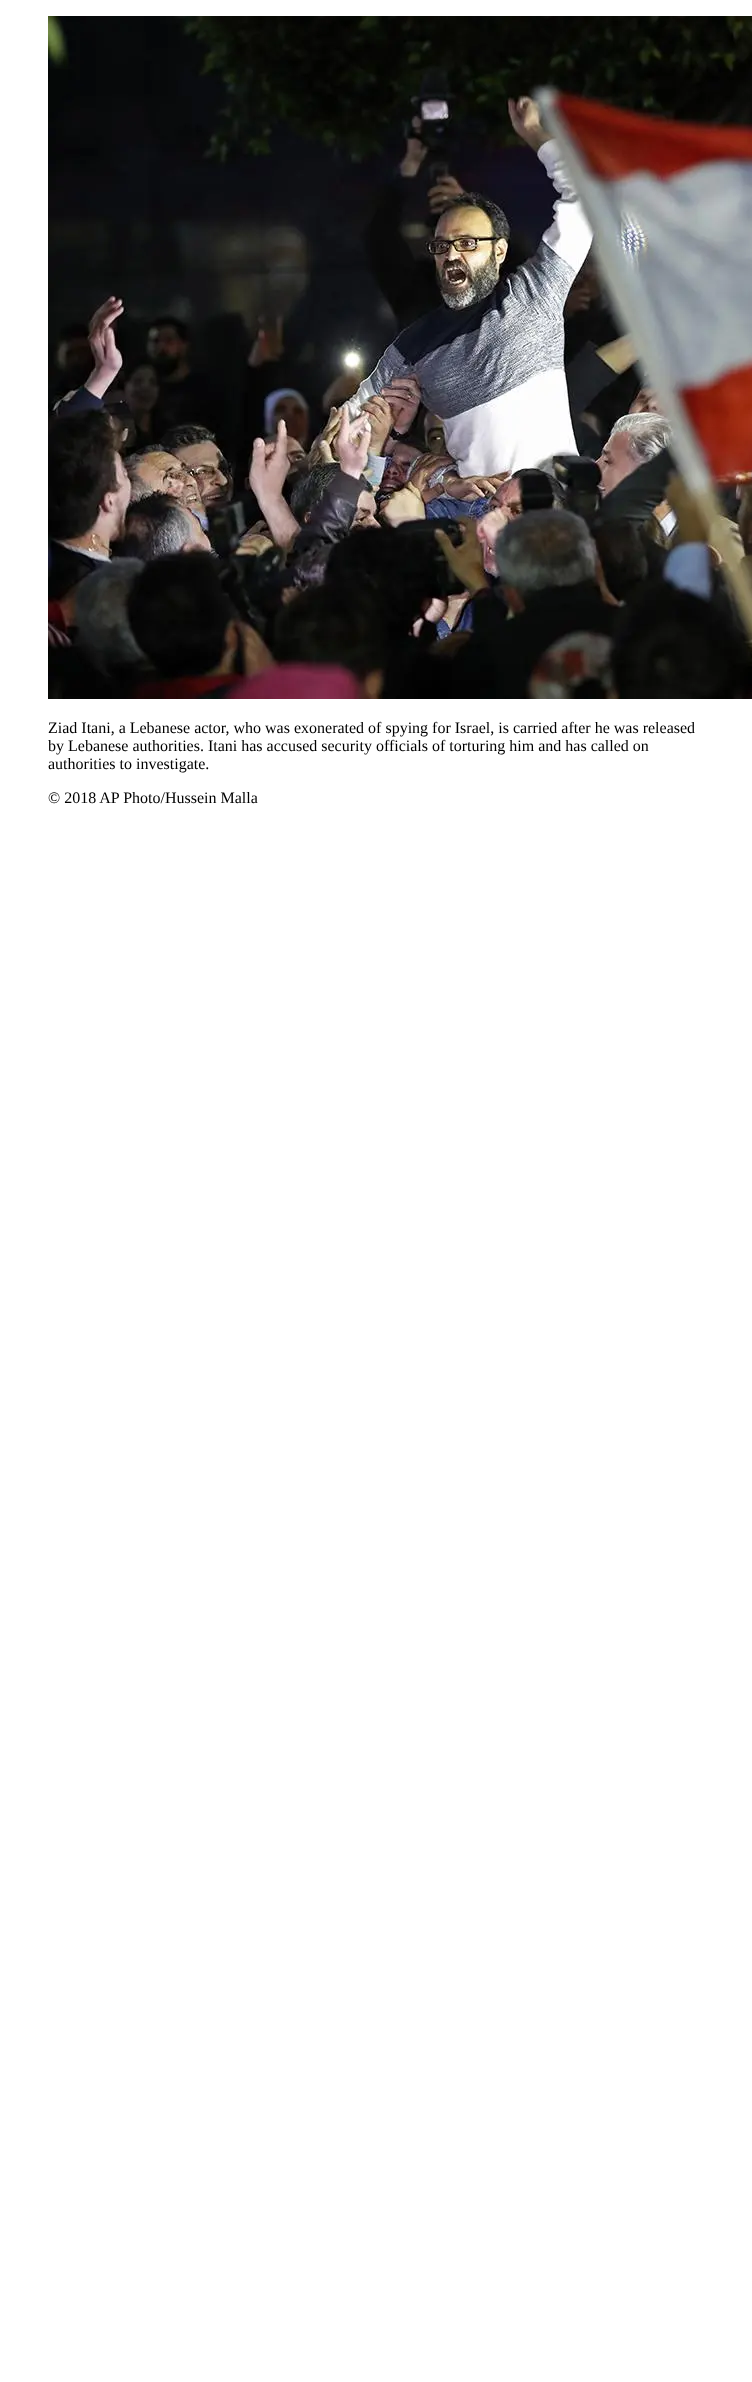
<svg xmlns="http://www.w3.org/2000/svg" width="752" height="2382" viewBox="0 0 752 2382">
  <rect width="100%" height="100%" fill="#fff"/>
  <image x="48" y="16" width="704" height="683" href="img/1.png"/>
  <g font-family="Liberation Serif" font-size="16" fill="#000">
    <text x="48" y="733">Ziad Itani, a Lebanese actor, who was exonerated of spying for Israel, is carried after he was released</text>
    <text x="48" y="751">by Lebanese authorities. Itani has accused security officials of torturing him and has called on</text>
    <text x="48" y="769">authorities to investigate.</text>
    <text x="48" y="803">© 2018 AP Photo/Hussein Malla</text>
  </g>
</svg>
